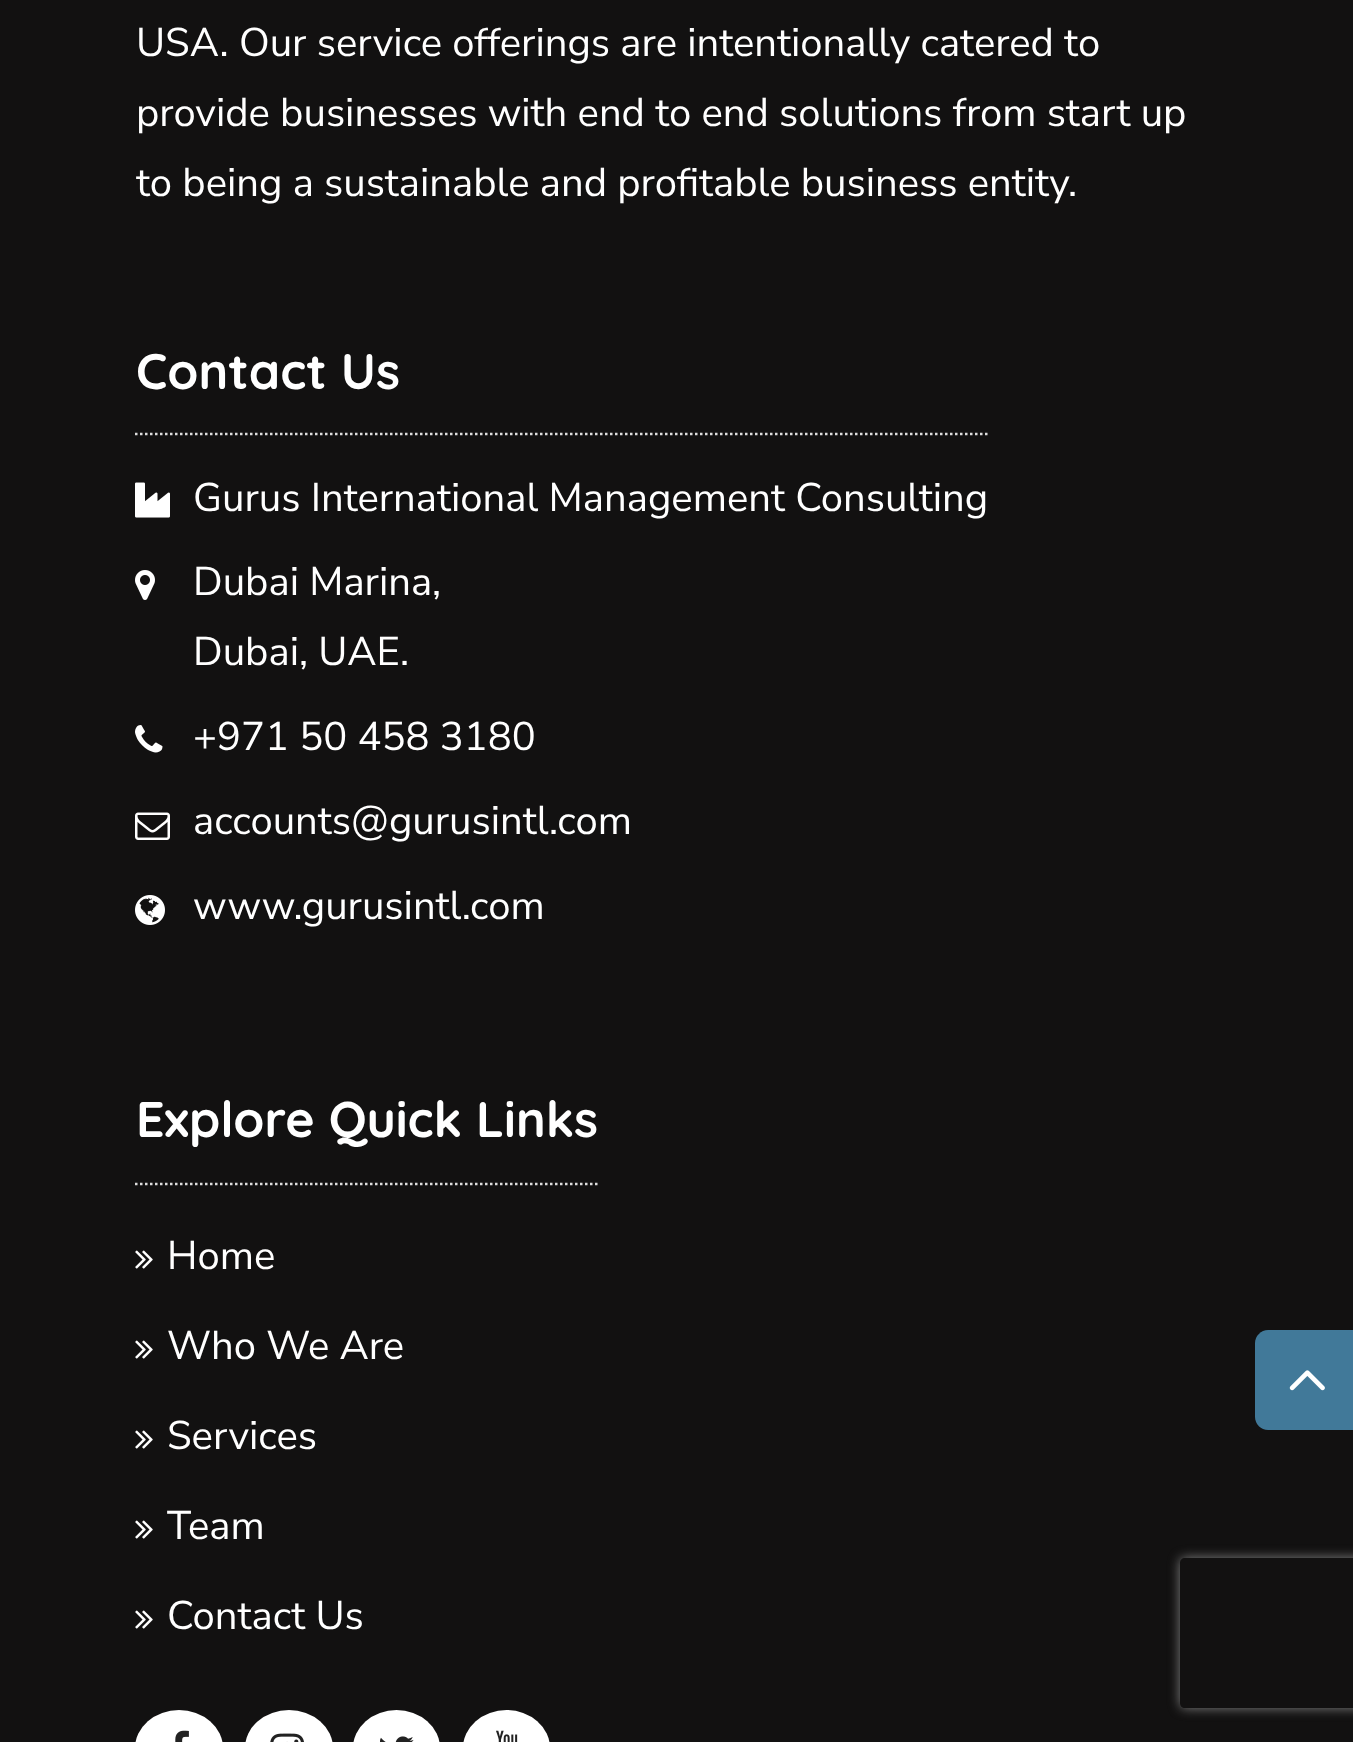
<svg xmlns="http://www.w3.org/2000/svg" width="1353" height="1742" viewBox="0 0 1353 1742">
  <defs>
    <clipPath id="clip1"><path d="M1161 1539H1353V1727H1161ZM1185 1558H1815C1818 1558 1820 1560 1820 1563V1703C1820 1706 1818 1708 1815 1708H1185C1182 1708 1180 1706 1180 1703V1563C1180 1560 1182 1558 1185 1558Z" clip-rule="evenodd"/></clipPath>
  </defs>
  <rect width="100%" height="100%" fill="#121111"/>
  <path d="M135 434H987.5" fill="none" stroke="#ddd" stroke-width="2.5" stroke-dasharray="2.5 2.5"/>
  <image x="135" y="482" width="35" height="36" href="img/1.png"/>
  <image x="135" y="570" width="20" height="30" href="img/2.png"/>
  <image x="135" y="725" width="28" height="28" href="img/3.png"/>
  <image x="135" y="812" width="35" height="28" href="img/4.png"/>
  <image x="135" y="895" width="30" height="30" href="img/5.png"/>
  <path d="M135 1184H597.5" fill="none" stroke="#ddd" stroke-width="2.5" stroke-dasharray="2.5 2.5"/>
  <image x="135" y="1250" width="18" height="19" href="img/6.png"/>
  <image x="135" y="1340" width="18" height="19" href="img/6.png"/>
  <image x="135" y="1430" width="18" height="19" href="img/6.png"/>
  <image x="135" y="1520" width="18" height="19" href="img/6.png"/>
  <image x="135" y="1610" width="18" height="19" href="img/6.png"/>
  <rect x="135" y="1710" width="88" height="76" rx="44" fill="#fff"/>
  <image x="175" y="1730" width="14" height="12" href="img/7.png"/>
  <rect x="245" y="1710" width="88" height="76" rx="44" fill="#fff"/>
  <image x="270" y="1733" width="34" height="9" href="img/8.png"/>
  <rect x="353" y="1710" width="87" height="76" rx="43.5" fill="#fff"/>
  <image x="380" y="1736" width="34" height="6" href="img/9.png"/>
  <rect x="463" y="1710" width="87" height="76" rx="43.5" fill="#fff"/>
  <image x="496" y="1730" width="22" height="12" href="img/10.png"/>
  <path d="M1268 1330H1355V1430H1268C1261 1430 1255 1424 1255 1417V1343C1255 1336 1261 1330 1268 1330Z" fill="#417999"/>
  <image x="1289" y="1370" width="36" height="21" href="img/11.png"/>
  <g clip-path="url(#clip1)">
    <rect x="1180" y="1558" width="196" height="150" rx="5" fill="#808080" filter="blur(6px)"/>
  </g>
  <g font-family="Nunito Sans" font-size="40" fill="#fff">
    <text x="136" y="56">USA. Our service offerings are intentionally catered to</text>
    <text x="136" y="126">provide businesses with end to end solutions from start up</text>
    <text x="136" y="196">to being a sustainable and profitable business entity.</text>
  </g>
  <text x="136" y="389" font-family="Quicksand" font-size="50" font-weight="bold" fill="#fff">Contact Us</text>
  <g font-family="Nunito Sans" font-size="40" fill="#fff">
    <text x="193" y="511">Gurus International Management Consulting</text>
    <text x="193" y="595">Dubai Marina,</text>
    <text x="193" y="665">Dubai, UAE.</text>
    <text x="193" y="750">+971 50 458 3180</text>
    <text x="193" y="834">accounts@gurusintl.com</text>
    <text x="193" y="919">www.gurusintl.com</text>
  </g>
  <text x="136" y="1137" font-family="Quicksand" font-size="50" font-weight="bold" fill="#fff">Explore Quick Links</text>
  <g font-family="Nunito Sans" font-size="40" fill="#fff">
    <text x="167" y="1269">Home</text>
    <text x="167" y="1359">Who We Are</text>
    <text x="167" y="1449">Services</text>
    <text x="167" y="1539">Team</text>
    <text x="167" y="1629">Contact Us</text>
  </g>
</svg>
